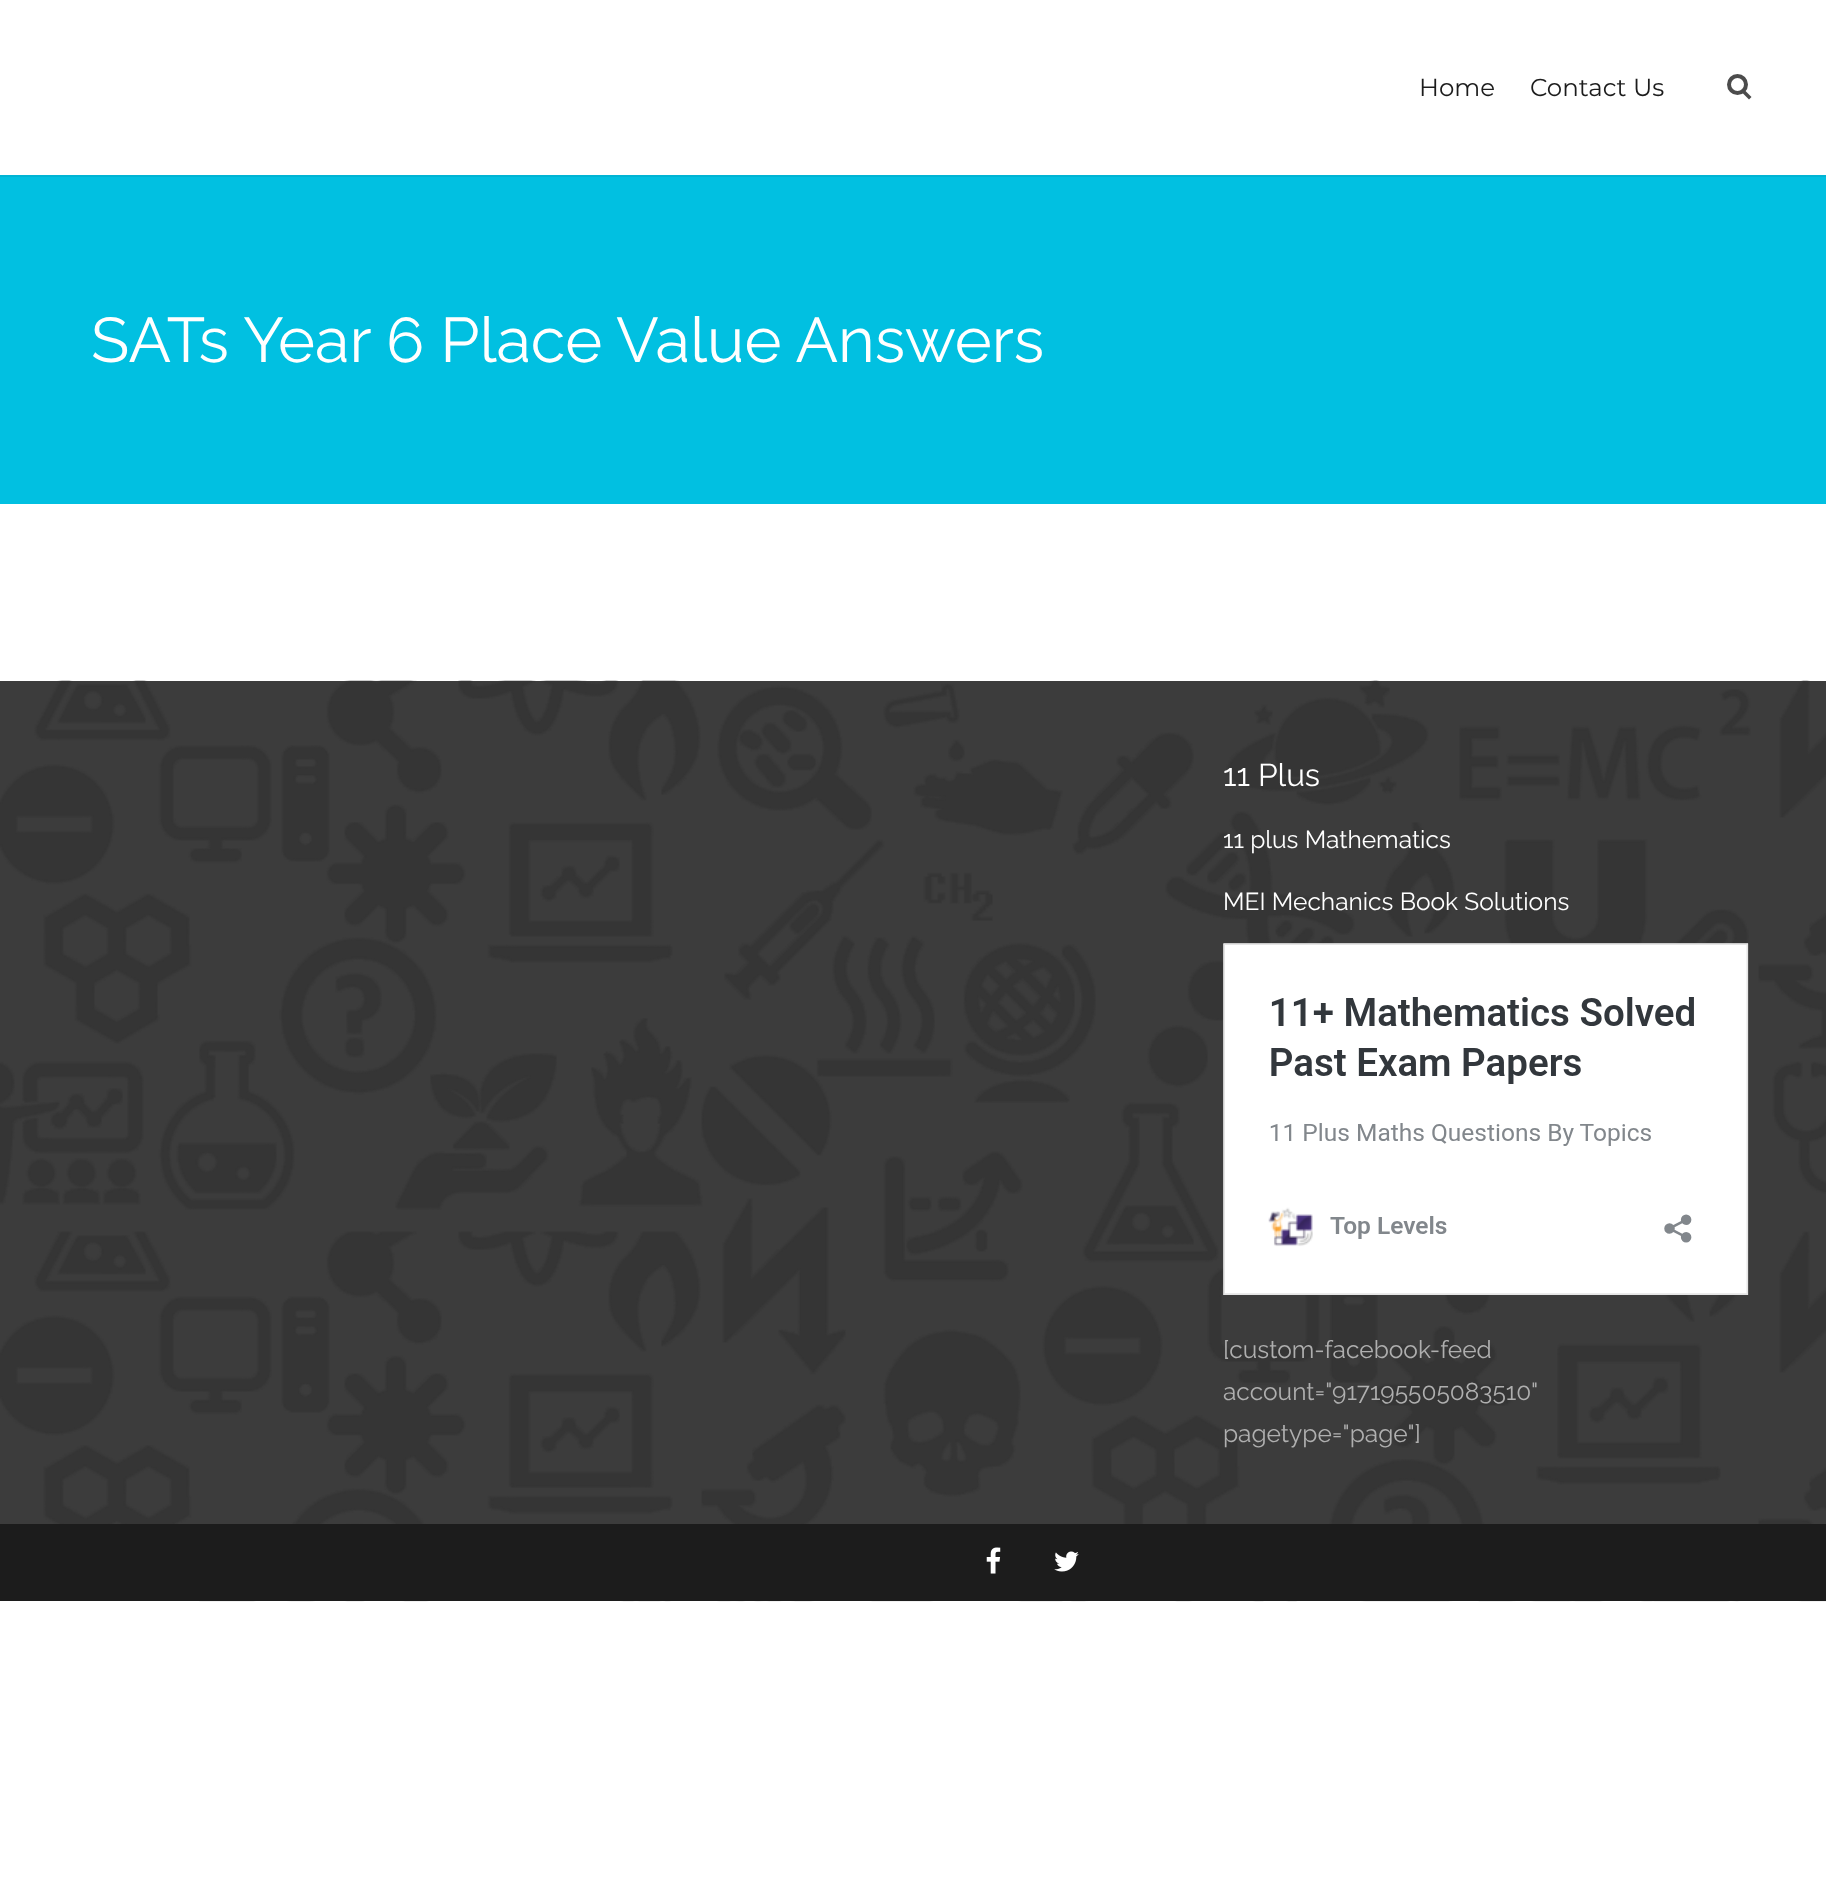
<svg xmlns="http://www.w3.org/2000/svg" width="1826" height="1895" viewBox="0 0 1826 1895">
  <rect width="100%" height="100%" fill="#fff"/>
  <path d="M0 175h1826v2H0z" fill="#01b4d4"/>
  <circle cx="1737.5" cy="84.5" r="8.5" fill="none" stroke="#4c4c4c" stroke-width="4"/>
  <path d="M1741.5 92L1744 89.5L1751.5 97L1749 99.5Z" fill="#4c4c4c"/>
  <path d="M0 177h1826v327H0z" fill="#01c0e1"/>
  <path d="M0 681h1826v843H0z" fill="#3c3c3c"/>
  <image x="0" y="680" width="1826" height="922" href="img/1.png"/>
  <image x="1223" y="943" width="526" height="352" href="img/2.png"/>
  <path d="M0 1524h1826v77H0z" fill="#1c1c1c"/>
  <image x="986" y="1547" width="15" height="27" href="img/3.png"/>
  <image x="1054" y="1551" width="25" height="21" href="img/4.png"/>
  <g font-family="Montserrat" font-size="24.5" font-weight="100" fill="#1c1c1c">
    <text x="1419" y="96">Home</text>
    <text x="1530" y="96">Contact Us</text>
  </g>
  <text x="91" y="362" font-family="Raleway" font-size="63" font-weight="100" fill="#fff">SATs Year 6 Place Value Answers</text>
  <text x="1223" y="786" font-family="Raleway" font-size="31.5" font-weight="100" fill="#fff">11 Plus</text>
  <g font-family="Raleway" font-size="24.5" font-weight="100" fill="#fff">
    <text x="1223" y="848">11 plus Mathematics</text>
    <text x="1223" y="910">MEI Mechanics Book Solutions</text>
  </g>
  <g font-family="Raleway" font-size="24.5" font-weight="100" fill="#afafaf">
    <text x="1223" y="1358">[custom-facebook-feed</text>
    <text x="1223" y="1400">account="917195505083510"</text>
    <text x="1223" y="1442">pagetype="page"]</text>
  </g>
</svg>
